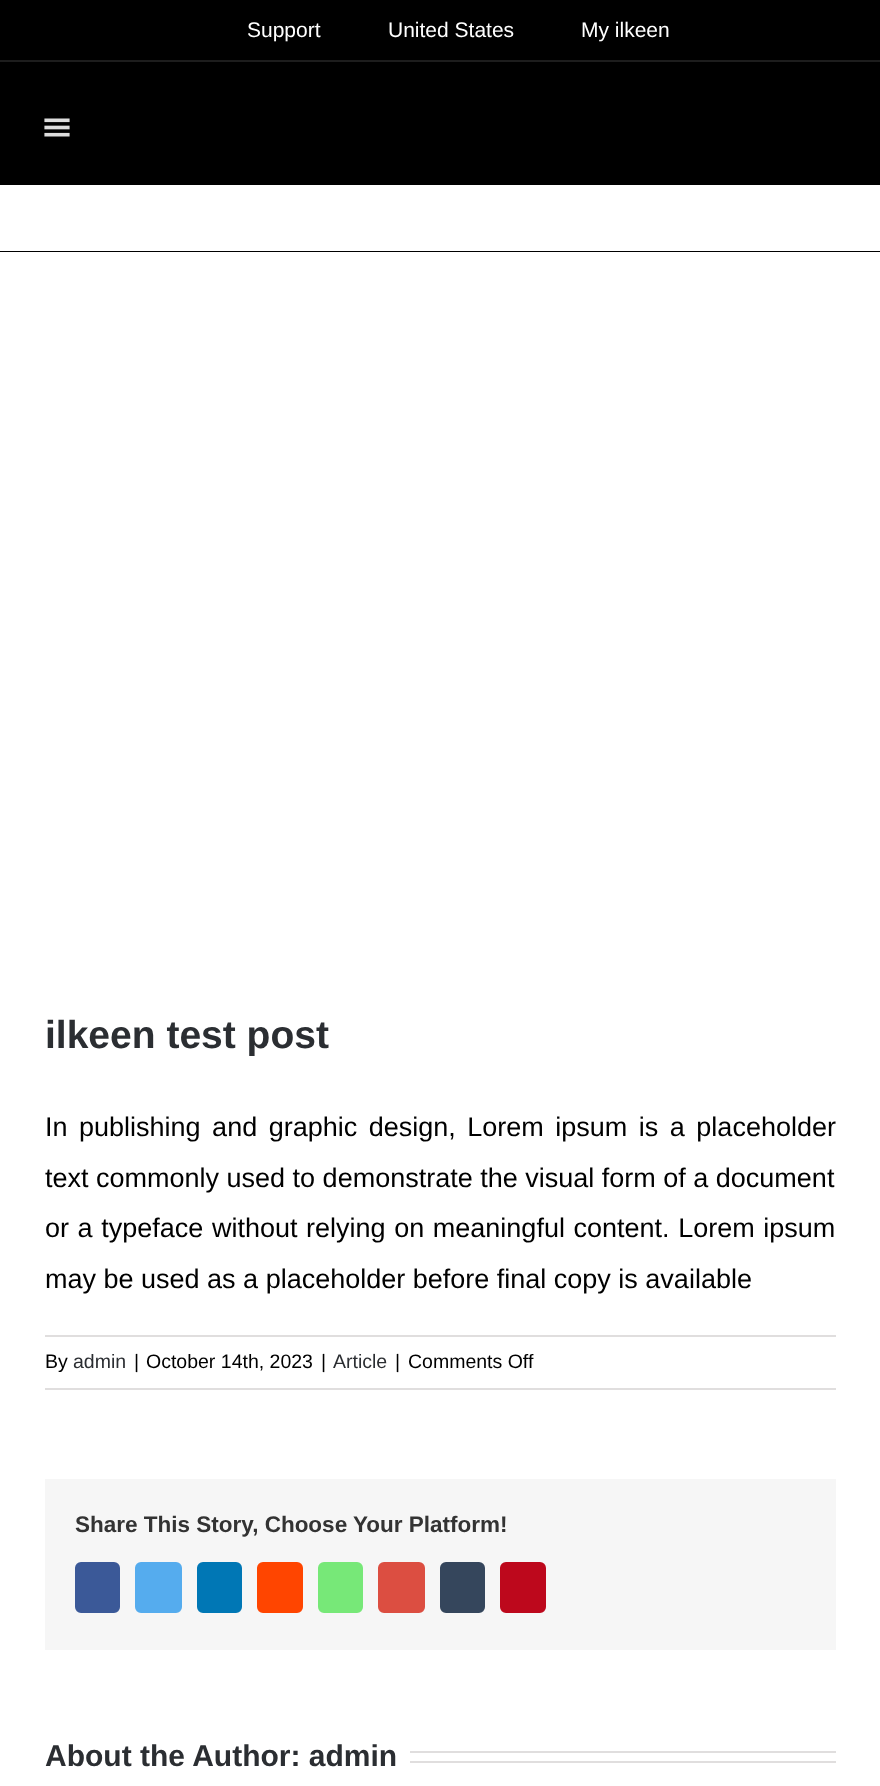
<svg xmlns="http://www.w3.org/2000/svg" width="880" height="1786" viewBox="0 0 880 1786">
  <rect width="100%" height="100%" fill="#fff"/>
  <path d="M0 0h880v60H0z" fill="#000"/>
  <path d="M0 60h880v2H0z" fill="#1d1d1d"/>
  <path d="M0 62h880v123H0z" fill="#000"/>
  <image x="44" y="118" width="26" height="19" href="img/1.png"/>
  <path d="M0 251h880v1H0z" fill="#000"/>
  <path d="M45 1335h791v2H45z" fill="#e0dede"/>
  <path d="M45 1388h791v2H45z" fill="#e0dede"/>
  <path d="M45 1479h791v171H45z" fill="#f6f6f6"/>
  <rect x="76" y="1563" width="43" height="49" rx="5" fill="#3b5998" stroke="#3b5998" stroke-width="2"/>
  <rect x="136" y="1563" width="45" height="49" rx="5" fill="#55acee" stroke="#55acee" stroke-width="2"/>
  <rect x="198" y="1563" width="43" height="49" rx="5" fill="#0077b5" stroke="#0077b5" stroke-width="2"/>
  <rect x="258" y="1563" width="44" height="49" rx="5" fill="#ff4500" stroke="#ff4500" stroke-width="2"/>
  <rect x="319" y="1563" width="43" height="49" rx="5" fill="#77e878" stroke="#77e878" stroke-width="2"/>
  <rect x="379" y="1563" width="45" height="49" rx="5" fill="#dc4e41" stroke="#dc4e41" stroke-width="2"/>
  <rect x="441" y="1563" width="43" height="49" rx="5" fill="#35465c" stroke="#35465c" stroke-width="2"/>
  <rect x="501" y="1563" width="44" height="49" rx="5" fill="#bd081c" stroke="#bd081c" stroke-width="2"/>
  <path d="M410 1751h426v2H410z" fill="#e0dede"/>
  <path d="M410 1761h426v2H410z" fill="#e0dede"/>
  <g font-family="Liberation Sans" font-size="21" fill="#fff">
    <text x="247" y="37">Support</text>
    <text x="388" y="37">United States</text>
    <text x="581" y="37">My ilkeen</text>
  </g>
  <text x="45" y="1048" font-family="Liberation Sans" font-size="39" font-weight="bold" fill="#2b2e32">ilkeen test post</text>
  <g font-family="Liberation Sans" font-size="27" fill="#000">
    <text x="45" y="1136" word-spacing="4">In publishing and graphic design, Lorem ipsum is a placeholder</text>
    <text x="45" y="1187">text commonly used to demonstrate the visual form of a document</text>
    <text x="45" y="1237" word-spacing="1.1">or a typeface without relying on meaningful content. Lorem ipsum</text>
    <text x="45" y="1288">may be used as a placeholder before final copy is available</text>
  </g>
  <text x="45" y="1368" font-family="Liberation Sans" font-size="19.5" fill="#000">By</text>
  <text x="73" y="1368" font-family="Liberation Sans" font-size="19.5" fill="#2b2e32">admin</text>
  <g font-family="Liberation Sans" font-size="19.5" fill="#000">
    <text x="134" y="1368">|</text>
    <text x="146" y="1368">October 14th, 2023</text>
    <text x="321" y="1368">|</text>
  </g>
  <text x="333" y="1368" font-family="Liberation Sans" font-size="19.5" fill="#2b2e32">Article</text>
  <g font-family="Liberation Sans" font-size="19.5" fill="#000">
    <text x="395" y="1368">|</text>
    <text x="408" y="1368">Comments Off</text>
  </g>
  <text x="75" y="1532" font-family="Liberation Sans" font-size="22.5" font-weight="bold" fill="#333">Share This Story, Choose Your Platform!</text>
  <text x="45" y="1766" font-family="Liberation Sans" font-size="30" font-weight="bold" fill="#2b2e32">About the Author: admin</text>
</svg>
